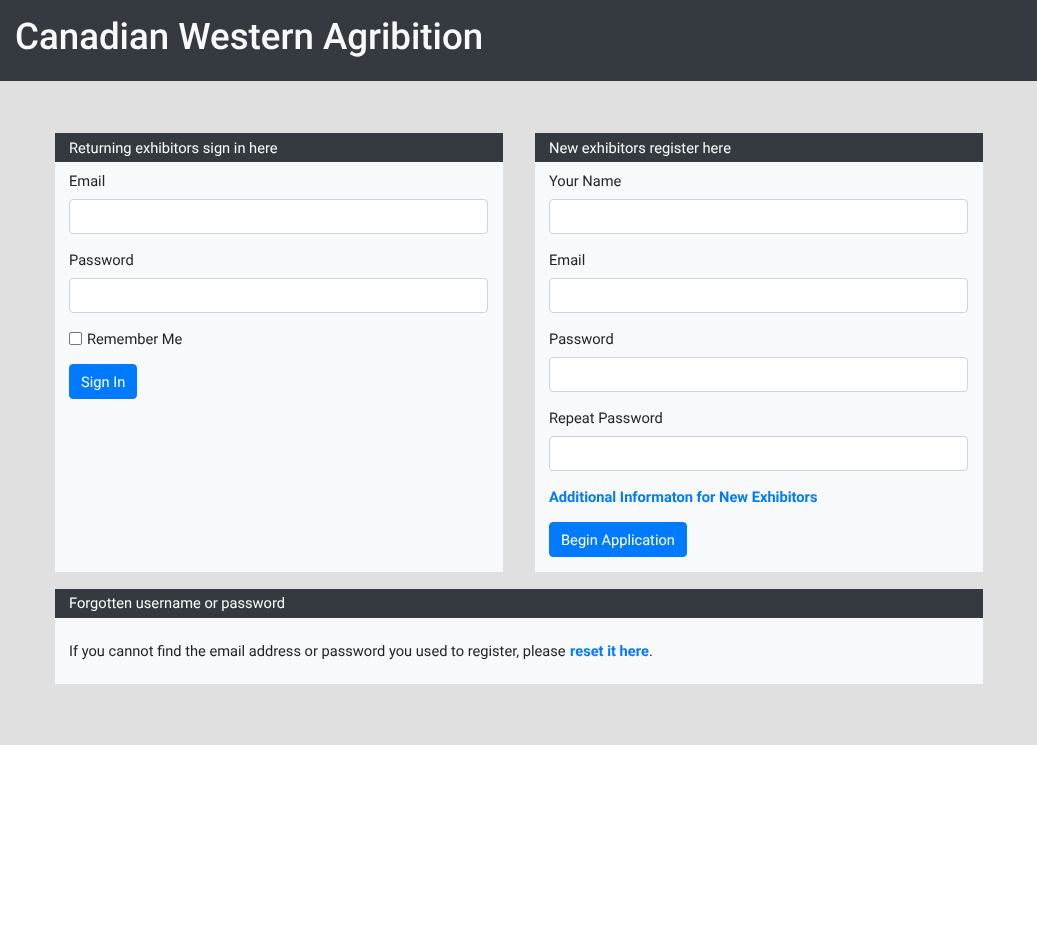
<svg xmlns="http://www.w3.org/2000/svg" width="1037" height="927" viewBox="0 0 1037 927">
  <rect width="100%" height="100%" fill="#fff"/>
  <path d="M0 81h1037v664H0z" fill="#e0e0e0"/>
  <path d="M0 0h1037v81H0z" fill="#343a40"/>
  <path d="M55 162h448v410H55z" fill="#f8f9fa"/>
  <path d="M54.5 132.5h449v440H54.5z" fill="none" stroke="#dee2e6"/>
  <path d="M55 133h448v29H55z" fill="#343a40"/>
  <rect x="70" y="200" width="417" height="33" rx="2.5" fill="#fff"/>
  <rect x="69.5" y="199.5" width="418" height="34" rx="3.5" fill="none" stroke="#ced4da"/>
  <rect x="70" y="279" width="417" height="33" rx="2.5" fill="#fff"/>
  <rect x="69.5" y="278.5" width="418" height="34" rx="3.5" fill="none" stroke="#ced4da"/>
  <rect x="69.5" y="332.5" width="12" height="12" rx="1.5" fill="#fff" stroke="#767676"/>
  <rect x="69.5" y="364.5" width="67" height="34" rx="3.5" fill="#007bff" stroke="#007bff"/>
  <path d="M535 162h448v410H535z" fill="#f8f9fa"/>
  <path d="M534.5 132.5h449v440H534.5z" fill="none" stroke="#dee2e6"/>
  <path d="M535 133h448v29H535z" fill="#343a40"/>
  <rect x="550" y="200" width="417" height="33" rx="2.5" fill="#fff"/>
  <rect x="549.5" y="199.5" width="418" height="34" rx="3.5" fill="none" stroke="#ced4da"/>
  <rect x="550" y="279" width="417" height="33" rx="2.5" fill="#fff"/>
  <rect x="549.5" y="278.5" width="418" height="34" rx="3.5" fill="none" stroke="#ced4da"/>
  <rect x="550" y="358" width="417" height="33" rx="2.5" fill="#fff"/>
  <rect x="549.5" y="357.5" width="418" height="34" rx="3.5" fill="none" stroke="#ced4da"/>
  <rect x="550" y="437" width="417" height="33" rx="2.5" fill="#fff"/>
  <rect x="549.5" y="436.5" width="418" height="34" rx="3.5" fill="none" stroke="#ced4da"/>
  <rect x="549.5" y="522.5" width="137" height="34" rx="3.5" fill="#007bff" stroke="#007bff"/>
  <path d="M55 618h928v66H55z" fill="#f8f9fa"/>
  <path d="M54.5 588.5h929v96H54.5z" fill="none" stroke="#dee2e6"/>
  <path d="M55 589h928v29H55z" fill="#343a40"/>
  <text x="15" y="49" font-family="Roboto" font-size="36.7" font-weight="500" fill="#f8f9fa">Canadian Western Agribition</text>
  <text x="69" y="153" font-family="Roboto" font-size="14.65" fill="#f8f9fa">Returning exhibitors sign in here</text>
  <g font-family="Roboto" font-size="14.65" fill="#212529">
    <text x="69" y="186">Email</text>
    <text x="69" y="265">Password</text>
    <text x="87" y="344">Remember Me</text>
  </g>
  <text x="81" y="387" font-family="Roboto" font-size="14.65" fill="#fff">Sign In</text>
  <text x="549" y="153" font-family="Roboto" font-size="14.65" fill="#f8f9fa">New exhibitors register here</text>
  <g font-family="Roboto" font-size="14.65" fill="#212529">
    <text x="549" y="186">Your Name</text>
    <text x="549" y="265">Email</text>
    <text x="549" y="344">Password</text>
    <text x="549" y="423">Repeat Password</text>
  </g>
  <text x="549" y="502" font-family="Roboto" font-size="14.65" font-weight="bold" fill="#007bff">Additional Informaton for New Exhibitors</text>
  <text x="561" y="545" font-family="Roboto" font-size="14.65" fill="#fff">Begin Application</text>
  <text x="69" y="608" font-family="Roboto" font-size="14.65" fill="#f8f9fa">Forgotten username or password</text>
  <text x="69" y="656" font-family="Roboto" font-size="14.65" fill="#212529">If you cannot find the email address or password you used to register, please</text>
  <text x="570" y="656" font-family="Roboto" font-size="14.65" font-weight="bold" fill="#007bff">reset it here</text>
  <text x="649" y="656" font-family="Roboto" font-size="14.65" fill="#212529">.</text>
</svg>
